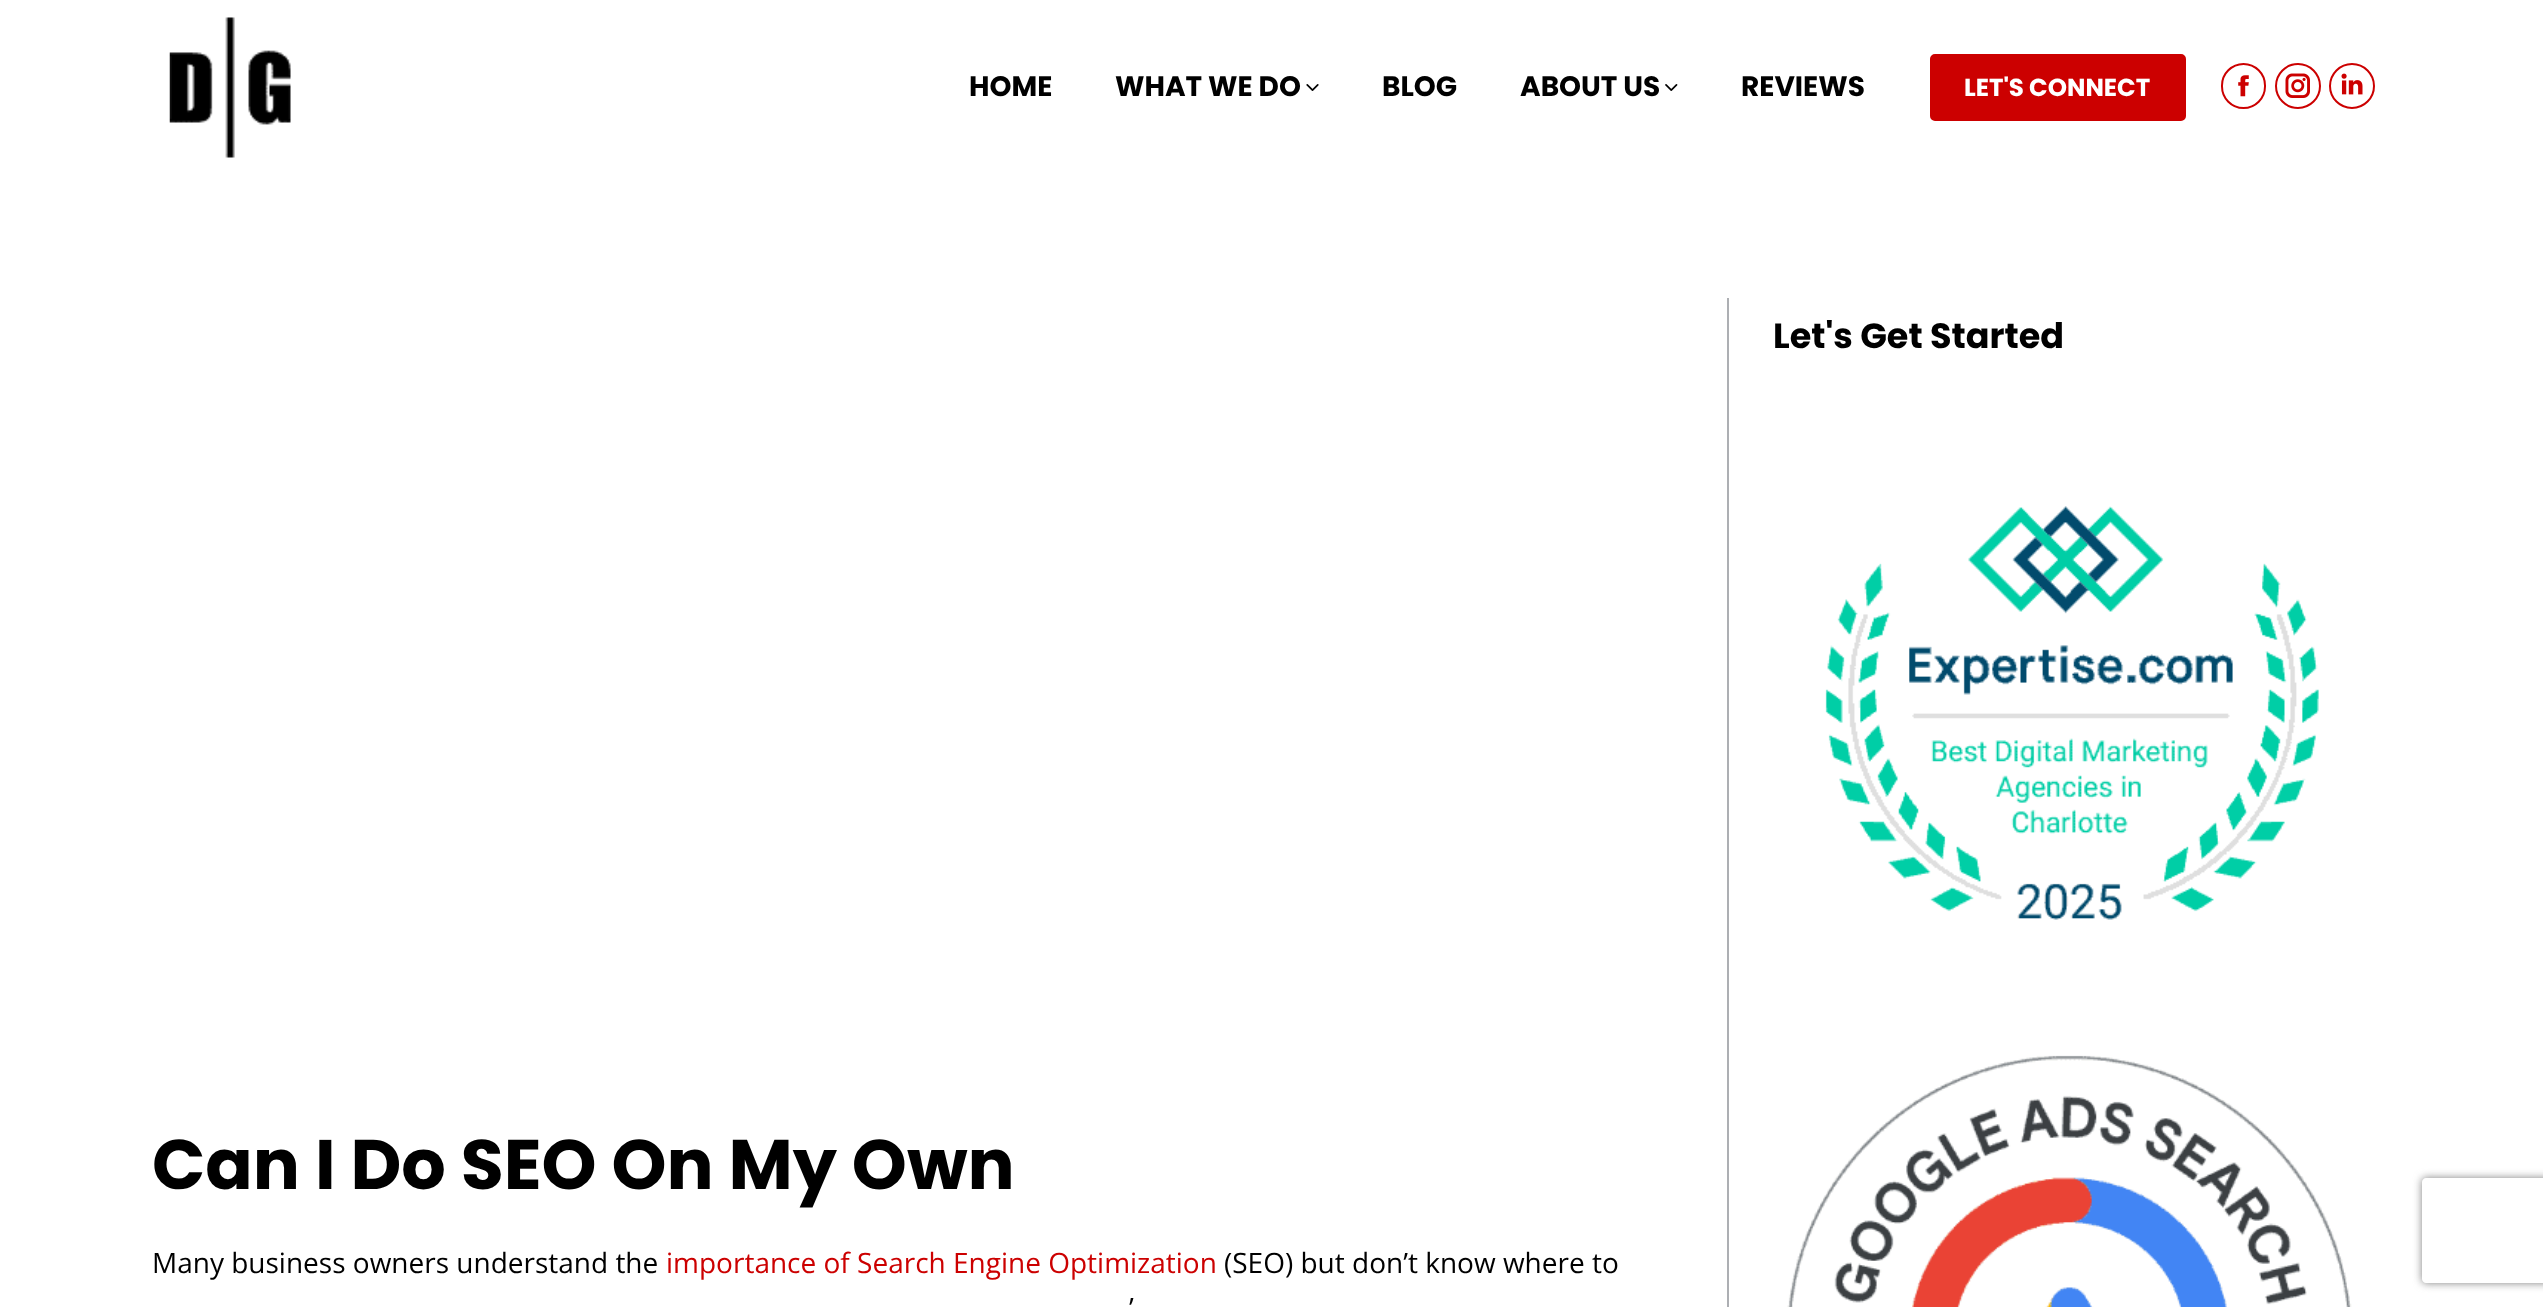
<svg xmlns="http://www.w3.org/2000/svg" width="2543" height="1307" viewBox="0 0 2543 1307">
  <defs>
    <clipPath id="clip1"><path d="M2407 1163H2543V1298H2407ZM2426 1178H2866C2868 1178 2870 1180 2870 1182V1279C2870 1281 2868 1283 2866 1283H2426C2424 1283 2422 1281 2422 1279V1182C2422 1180 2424 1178 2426 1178Z" clip-rule="evenodd"/></clipPath>
  </defs>
  <rect width="100%" height="100%" fill="#fff"/>
  <image x="169" y="17" width="122" height="141" href="img/1.png"/>
  <image x="1306" y="84" width="13" height="7" href="img/2.png"/>
  <image x="1665" y="84" width="13" height="7" href="img/3.png"/>
  <rect x="1931" y="55" width="254" height="65" rx="4" fill="#c00" stroke="#c00" stroke-width="2"/>
  <rect x="2222" y="64" width="43" height="44" rx="21.5" fill="none" stroke="#c00" stroke-width="2"/>
  <image x="2238" y="75" width="11" height="22" href="img/4.png"/>
  <circle cx="2298" cy="86" r="22" fill="none" stroke="#c00" stroke-width="2"/>
  <image x="2285" y="73" width="25" height="25" href="img/5.png"/>
  <circle cx="2352" cy="86" r="22" fill="none" stroke="#c00" stroke-width="2"/>
  <image x="2341" y="73" width="22" height="22" href="img/6.png"/>
  <path d="M1727 298h2v1009H1727z" fill="#adafb3"/>
  <image x="1825" y="506" width="494" height="414" href="img/7.png"/>
  <image x="1787" y="1055" width="565" height="252" href="img/8.png"/>
  <g clip-path="url(#clip1)">
    <rect x="2422" y="1178" width="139" height="105" rx="4" fill="#808080" filter="blur(4.5px)"/>
  </g>
  <g font-family="Poppins" font-size="28" font-weight="bold" fill="#000">
    <text x="969" y="96">HOME</text>
    <text x="1115" y="96">WHAT WE DO</text>
    <text x="1382" y="96">BLOG</text>
    <text x="1520" y="96">ABOUT US</text>
    <text x="1741" y="96">REVIEWS</text>
  </g>
  <text x="1964" y="96" font-family="Poppins" font-size="24.5" font-weight="bold" fill="#fff">LET'S CONNECT</text>
  <text x="1773" y="348" font-family="Poppins" font-size="35" font-weight="bold" fill="#000">Let's Get Started</text>
  <text x="152" y="1189" font-family="Poppins" font-size="70" font-weight="bold" fill="#000">Can I Do SEO On My Own</text>
  <text x="152" y="1273" font-family="Open Sans" font-size="28" fill="#000">Many business owners understand the</text>
  <text x="666" y="1273" font-family="Open Sans" font-size="28" fill="#c00">importance of Search Engine Optimization</text>
  <g font-family="Open Sans" font-size="28" fill="#000">
    <text x="1224" y="1273">(SEO) but don’t know where to</text>
    <text x="1129" y="1318">’</text>
  </g>
</svg>
